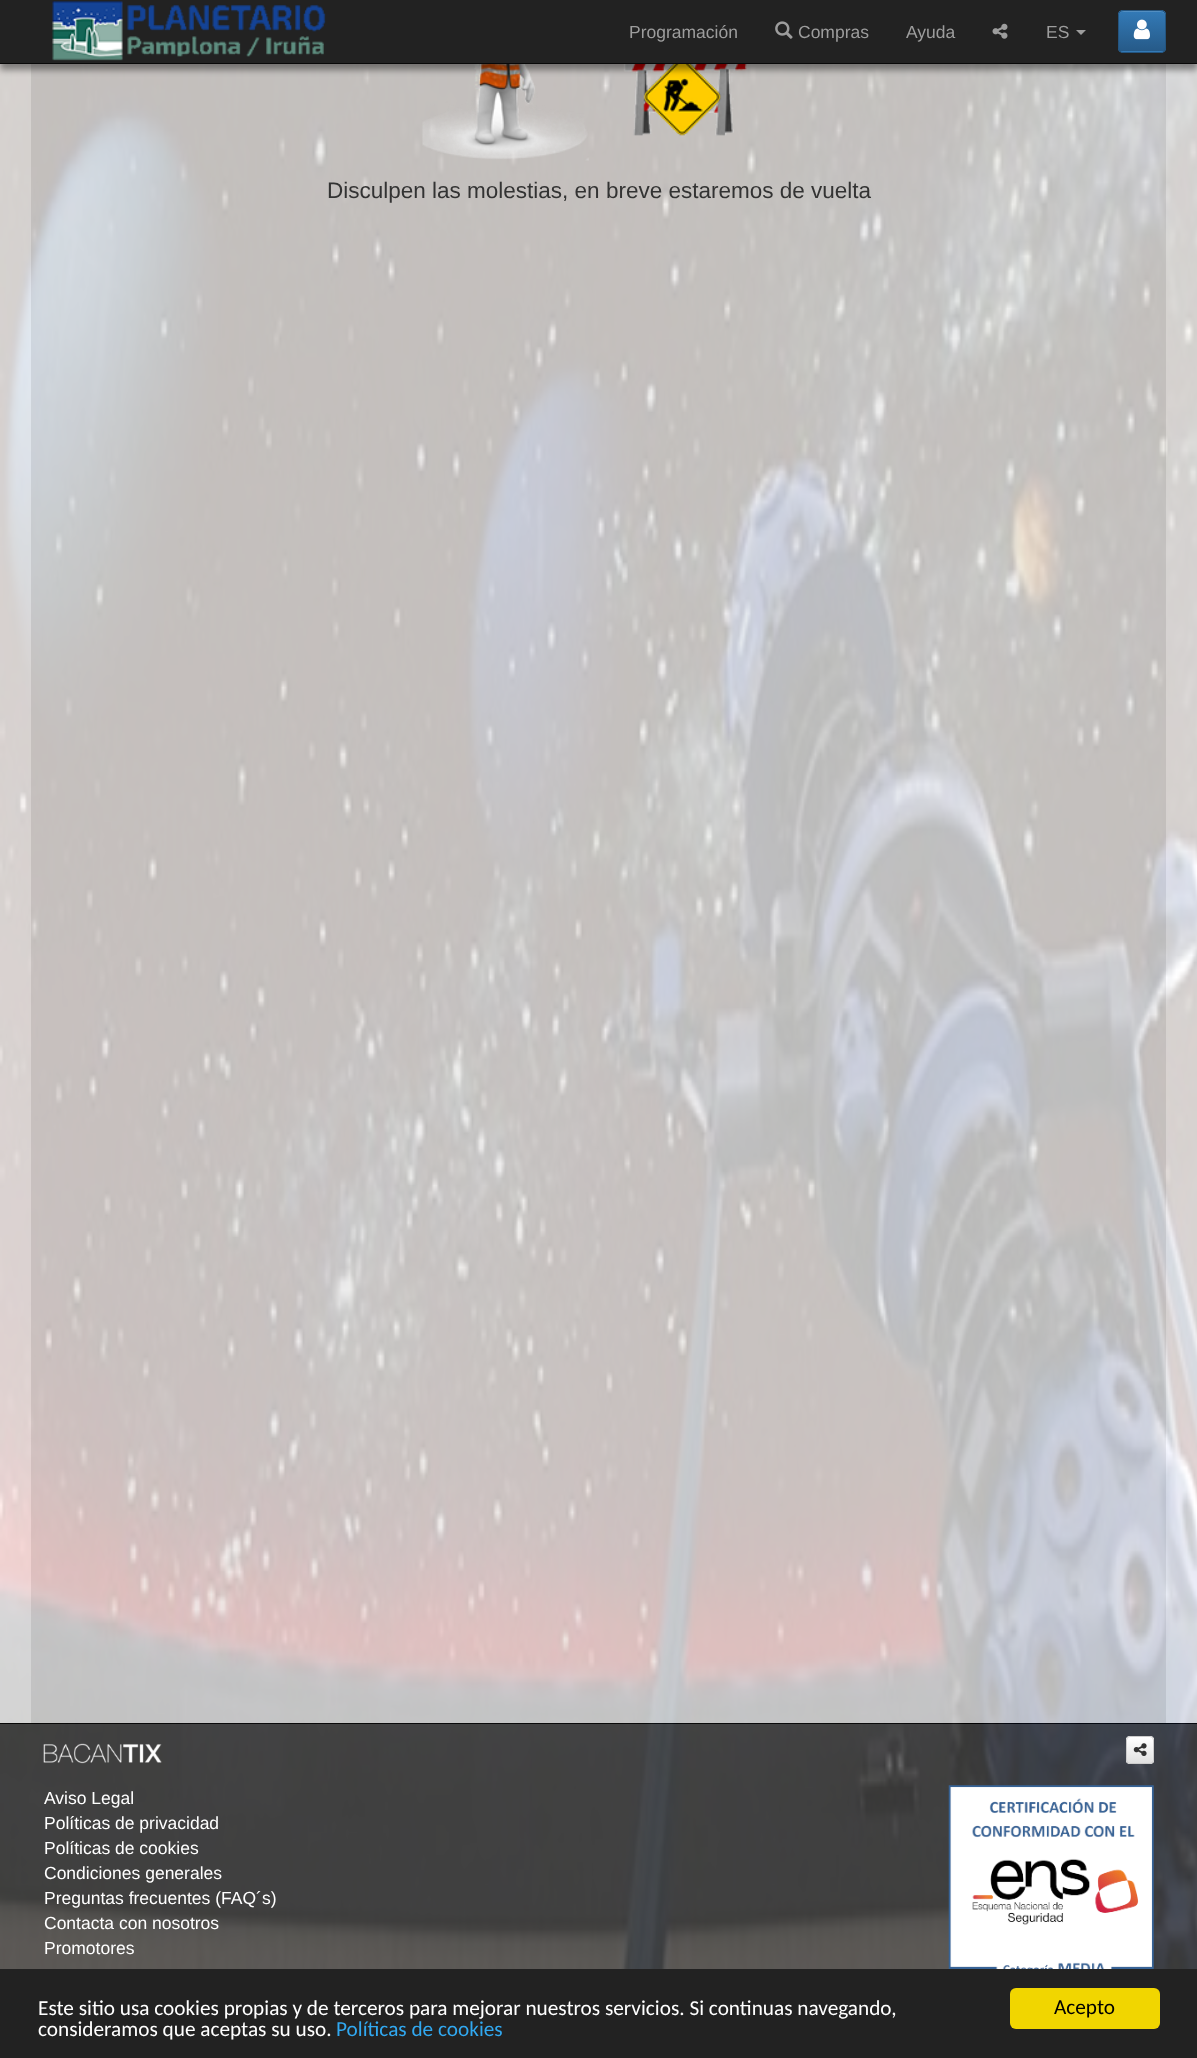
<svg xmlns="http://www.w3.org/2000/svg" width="1197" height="2058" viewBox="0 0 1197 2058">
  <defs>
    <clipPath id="clip1"><rect x="1118" y="10" width="48" height="43" rx="5"/></clipPath>
    <linearGradient id="g1" gradientUnits="userSpaceOnUse" x1="1142" y1="11" x2="1142" y2="51"><stop offset="0" stop-color="#337ab7"/><stop offset="1" stop-color="#265a88"/></linearGradient>
    <clipPath id="clip2"><rect x="1126" y="1736" width="28" height="28" rx="4"/></clipPath>
    <linearGradient id="g2" gradientUnits="userSpaceOnUse" x1="1140" y1="1738" x2="1140" y2="1763"><stop offset="0" stop-color="#fff"/><stop offset="1" stop-color="#e0e0e0"/></linearGradient>
  </defs>
  <rect width="100%" height="100%" fill="#fff"/>
  <path d="M31 64h1135v1659H31z" fill="#e9e9e9"/>
  <path d="M0 1724h1197v245H0z" fill="#464646"/>
  <path d="M0 1723h1197v1H0z" fill="#000"/>
  <image x="0" y="64" width="1197" height="1905" href="img/5.png"/>
  <image x="422" y="64" width="325" height="97" href="img/6.png"/>
  <path d="M0 6h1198v64H0z" fill="#00000066" filter="blur(3px)"/>
  <path d="M0 0h1197v63H0z" fill="#222"/>
  <path d="M0 63h1197v1H0z" fill="#080808"/>
  <image x="52" y="1" width="274" height="60" href="img/1.png"/>
  <image x="775" y="21" width="18" height="18" href="img/2.png"/>
  <image x="992" y="23" width="16" height="16" href="img/3.png"/>
  <path d="M1076 30H1086L1081 35Z" fill="#9d9d9d"/>
  <rect x="1118" y="10" width="48" height="43" rx="5" fill="#337ab7"/>
  <g clip-path="url(#clip1)">
    <path d="M1118 11h48v40H1118z" fill="url(#g1)"/>
  </g>
  <path d="M1122 12H1161C1163 12 1165 14 1165 16C1165 10 1159 11 1155 11H1129C1125 11 1119 10 1119 16C1119 14 1120 12 1122 12Z" fill="#528ec1"/>
  <rect x="1118.5" y="10.5" width="47" height="42" rx="4.5" fill="none" stroke="#245580"/>
  <image x="1133" y="19" width="17" height="21" href="img/4.png"/>
  <image x="43" y="1743" width="119" height="21" href="img/7.png"/>
  <rect x="1126" y="1736" width="28" height="28" rx="4" fill="#fff"/>
  <g clip-path="url(#clip2)">
    <path d="M1126 1738h28v25H1126z" fill="url(#g2)"/>
  </g>
  <path d="M1130 1739H1150C1151 1739 1152 1740 1152 1741V1761L1151.5 1762.5C1152.5 1762.5 1153 1761.5 1153 1760.5V1740.5C1153 1739 1152 1738 1150.5 1738H1130.5C1129 1738 1128 1739 1128 1740.5V1741C1128 1740 1129 1739 1130 1739Z" fill="#ffffff26"/>
  <rect x="1126.5" y="1736.5" width="27" height="27" rx="3.5" fill="none" stroke="#ccc"/>
  <image x="1133" y="1743" width="14" height="13" href="img/8.png"/>
  <image x="948" y="1785" width="206" height="184" href="img/9.png"/>
  <path d="M0 1969h1197v89H0z" fill="#222"/>
  <rect x="1010" y="1988" width="150" height="41" rx="6" fill="#f1d600"/>
  <g font-family="Liberation Sans" font-size="17.5" fill="#9d9d9d">
    <text x="629" y="38">Programación</text>
    <text x="798" y="38">Compras</text>
    <text x="906" y="38">Ayuda</text>
    <text x="1046" y="38">ES</text>
  </g>
  <text x="327" y="198" font-family="Liberation Sans" font-size="22.5" fill="#333">Disculpen las molestias, en breve estaremos de vuelta</text>
  <g font-family="Liberation Sans" font-size="17.5" fill="#fff">
    <text x="44" y="1804">Aviso Legal</text>
    <text x="44" y="1829">Políticas de privacidad</text>
    <text x="44" y="1854">Políticas de cookies</text>
    <text x="44" y="1879">Condiciones generales</text>
    <text x="44" y="1904">Preguntas frecuentes (FAQ´s)</text>
    <text x="44" y="1929">Contacta con nosotros</text>
    <text x="44" y="1954">Promotores</text>
  </g>
  <g font-family="Carlito" font-size="21.25" fill="#fff">
    <text x="38" y="2015">Este sitio usa cookies propias y de terceros para mejorar nuestros servicios. Si continuas navegando,</text>
    <text x="38" y="2036">consideramos que aceptas su uso.</text>
  </g>
  <text x="336" y="2036" font-family="Carlito" font-size="21.25" fill="#31a8f0">Políticas de cookies</text>
  <text x="1054" y="2014" font-family="Carlito" font-size="21.25" fill="#000">Acepto</text>
</svg>
